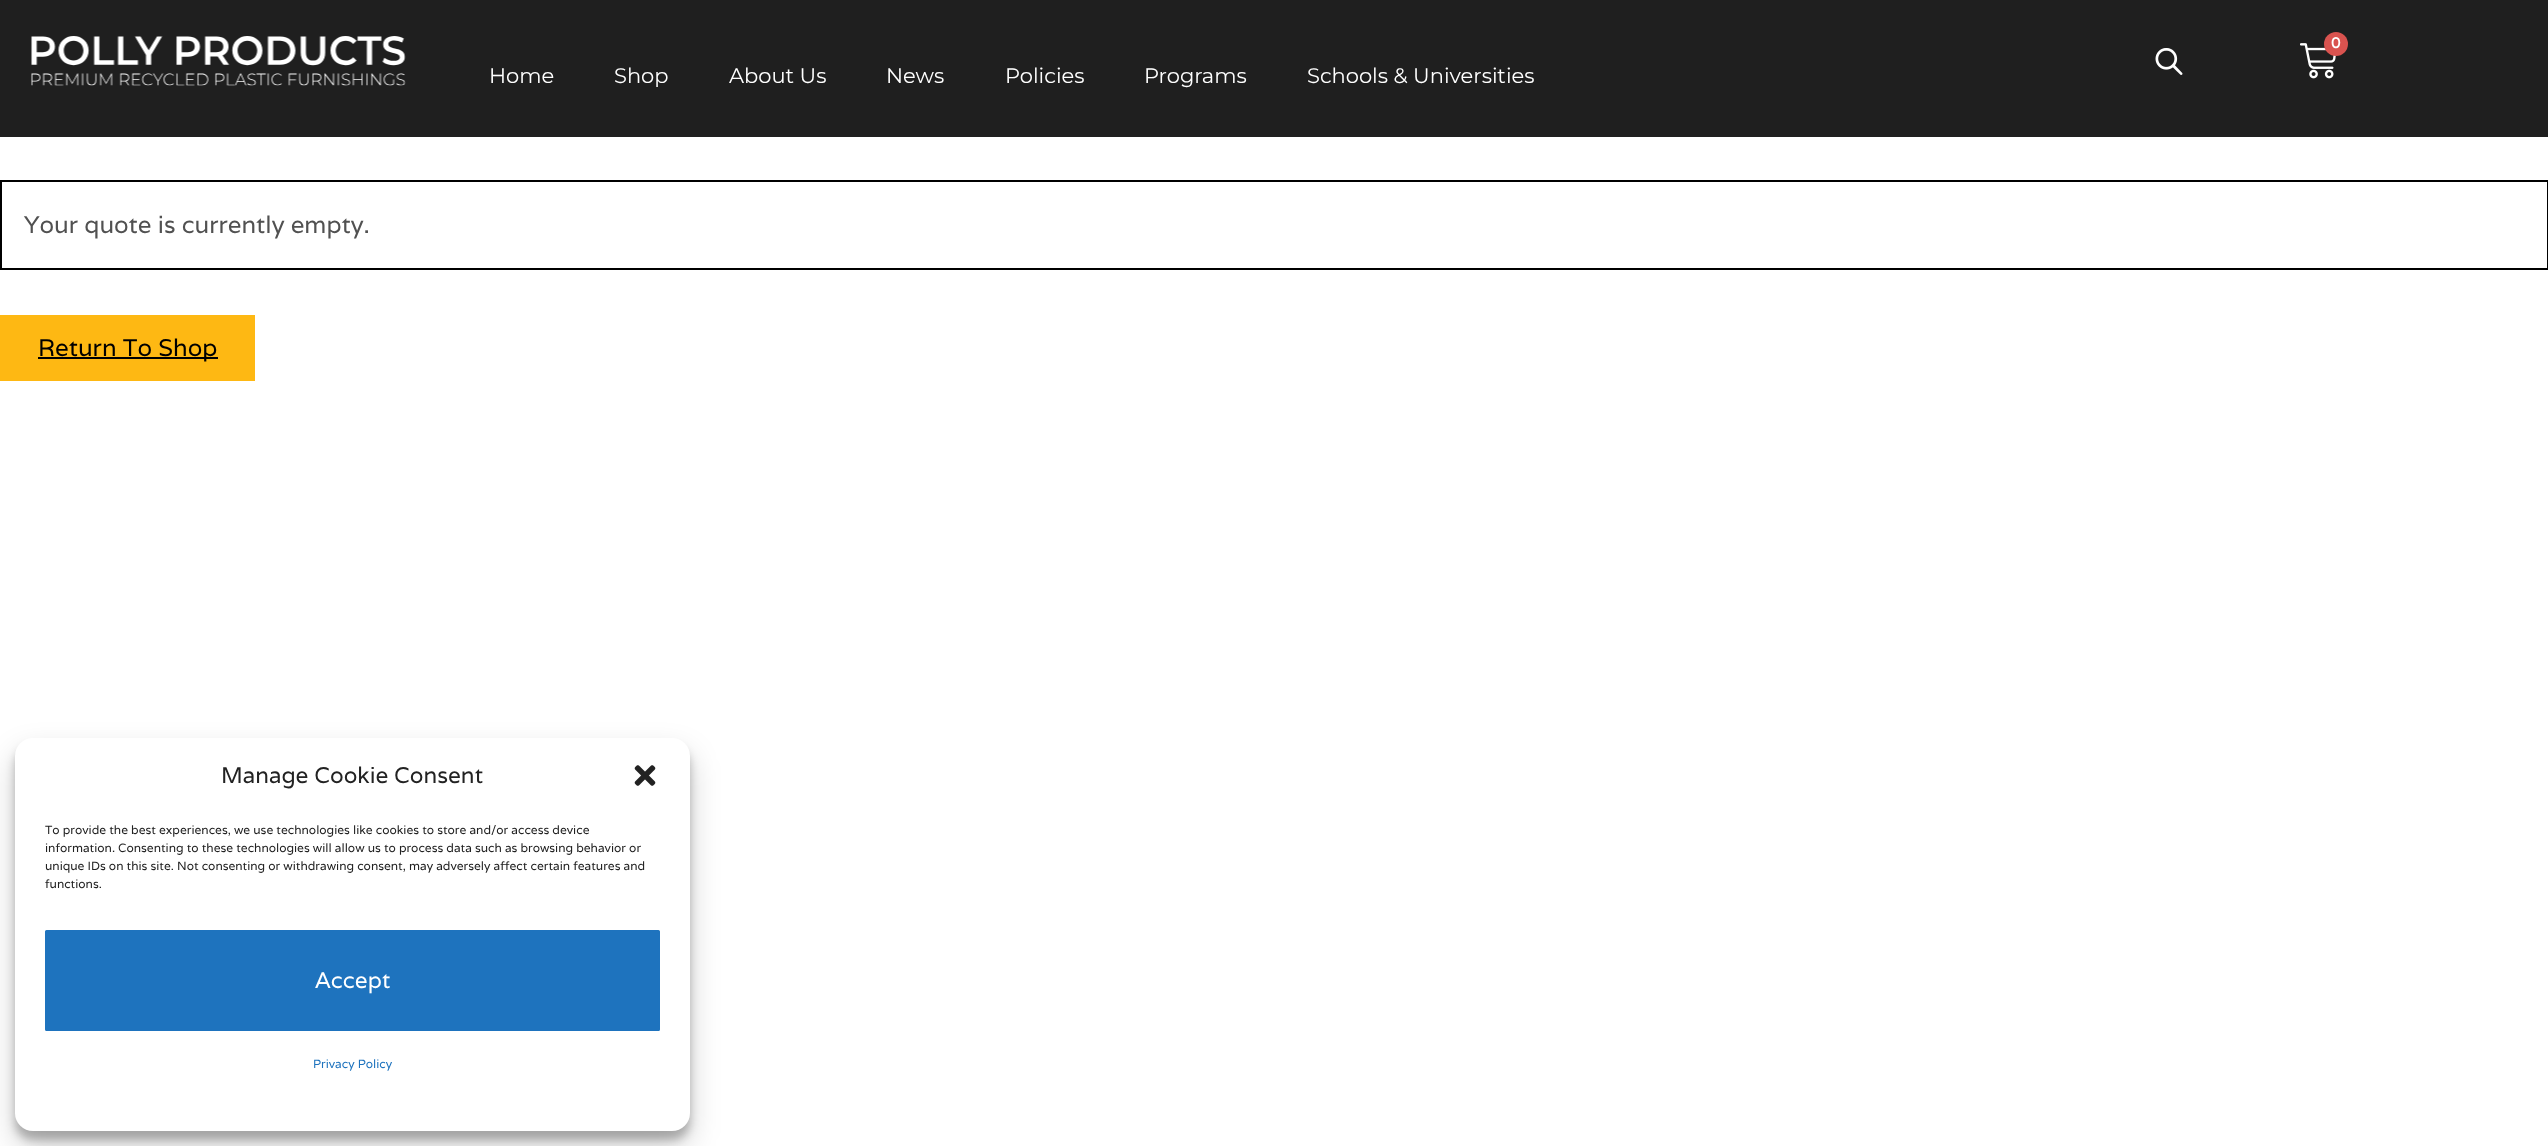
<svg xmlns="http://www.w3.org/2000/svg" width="2548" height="1146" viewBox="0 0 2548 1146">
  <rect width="100%" height="100%" fill="#fff"/>
  <path d="M0 0h2548v137H0z" fill="#1f1f1f"/>
  <image x="31" y="36" width="375" height="50" href="img/1.png"/>
  <image x="2300" y="43" width="36" height="36" href="img/2.png"/>
  <circle cx="2336" cy="44" r="12" fill="#d9534f"/>
  <image x="2155" y="48" width="28" height="27" href="img/3.png"/>
  <path d="M1 181h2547v88H1z" fill="none" stroke="#000" stroke-width="2"/>
  <path d="M0 315h255v66H0z" fill="#feb813"/>
  <path d="M38 357h180v2H38z" fill="#000"/>
  <rect x="15" y="747" width="675" height="393" rx="18" fill="#0000003b" filter="blur(4.5px)"/>
  <rect x="15" y="753" width="675" height="393" rx="18" fill="#00000030" filter="blur(15px)"/>
  <rect x="15" y="738" width="675" height="393" rx="18" fill="#fff"/>
  <image x="634" y="765" width="22" height="21" href="img/4.png"/>
  <rect x="46" y="931" width="613" height="99" rx="0.5" fill="#1e73be" stroke="#1e73be" stroke-width="2"/>
  <text x="2331" y="48" font-family="Varela" font-size="15" font-weight="bold" fill="#fff">0</text>
  <g font-family="Montserrat" font-size="21" fill="#fff">
    <text x="489" y="83">Home</text>
    <text x="614" y="83">Shop</text>
    <text x="729" y="83">About Us</text>
    <text x="886" y="83">News</text>
    <text x="1005" y="83">Policies</text>
    <text x="1144" y="83">Programs</text>
    <text x="1307" y="83">Schools &amp; Universities</text>
  </g>
  <text x="24" y="233" font-family="Varela" font-size="24" fill="#515151">Your quote is currently empty.</text>
  <text x="38" y="356" font-family="Varela" font-size="24" fill="#000">Return To Shop</text>
  <text x="221" y="783" font-family="Varela" font-size="22.5" fill="#222">Manage Cookie Consent</text>
  <g font-family="Varela" font-size="12" fill="#222">
    <text x="45" y="834">To provide the best experiences, we use technologies like cookies to store and/or access device</text>
    <text x="45" y="852">information. Consenting to these technologies will allow us to process data such as browsing behavior or</text>
    <text x="45" y="870">unique IDs on this site. Not consenting or withdrawing consent, may adversely affect certain features and</text>
    <text x="45" y="888">functions.</text>
  </g>
  <text x="315" y="988" font-family="Varela" font-size="22.5" fill="#fff">Accept</text>
  <text x="313" y="1068" font-family="Varela" font-size="12" fill="#1e73be">Privacy Policy</text>
</svg>
